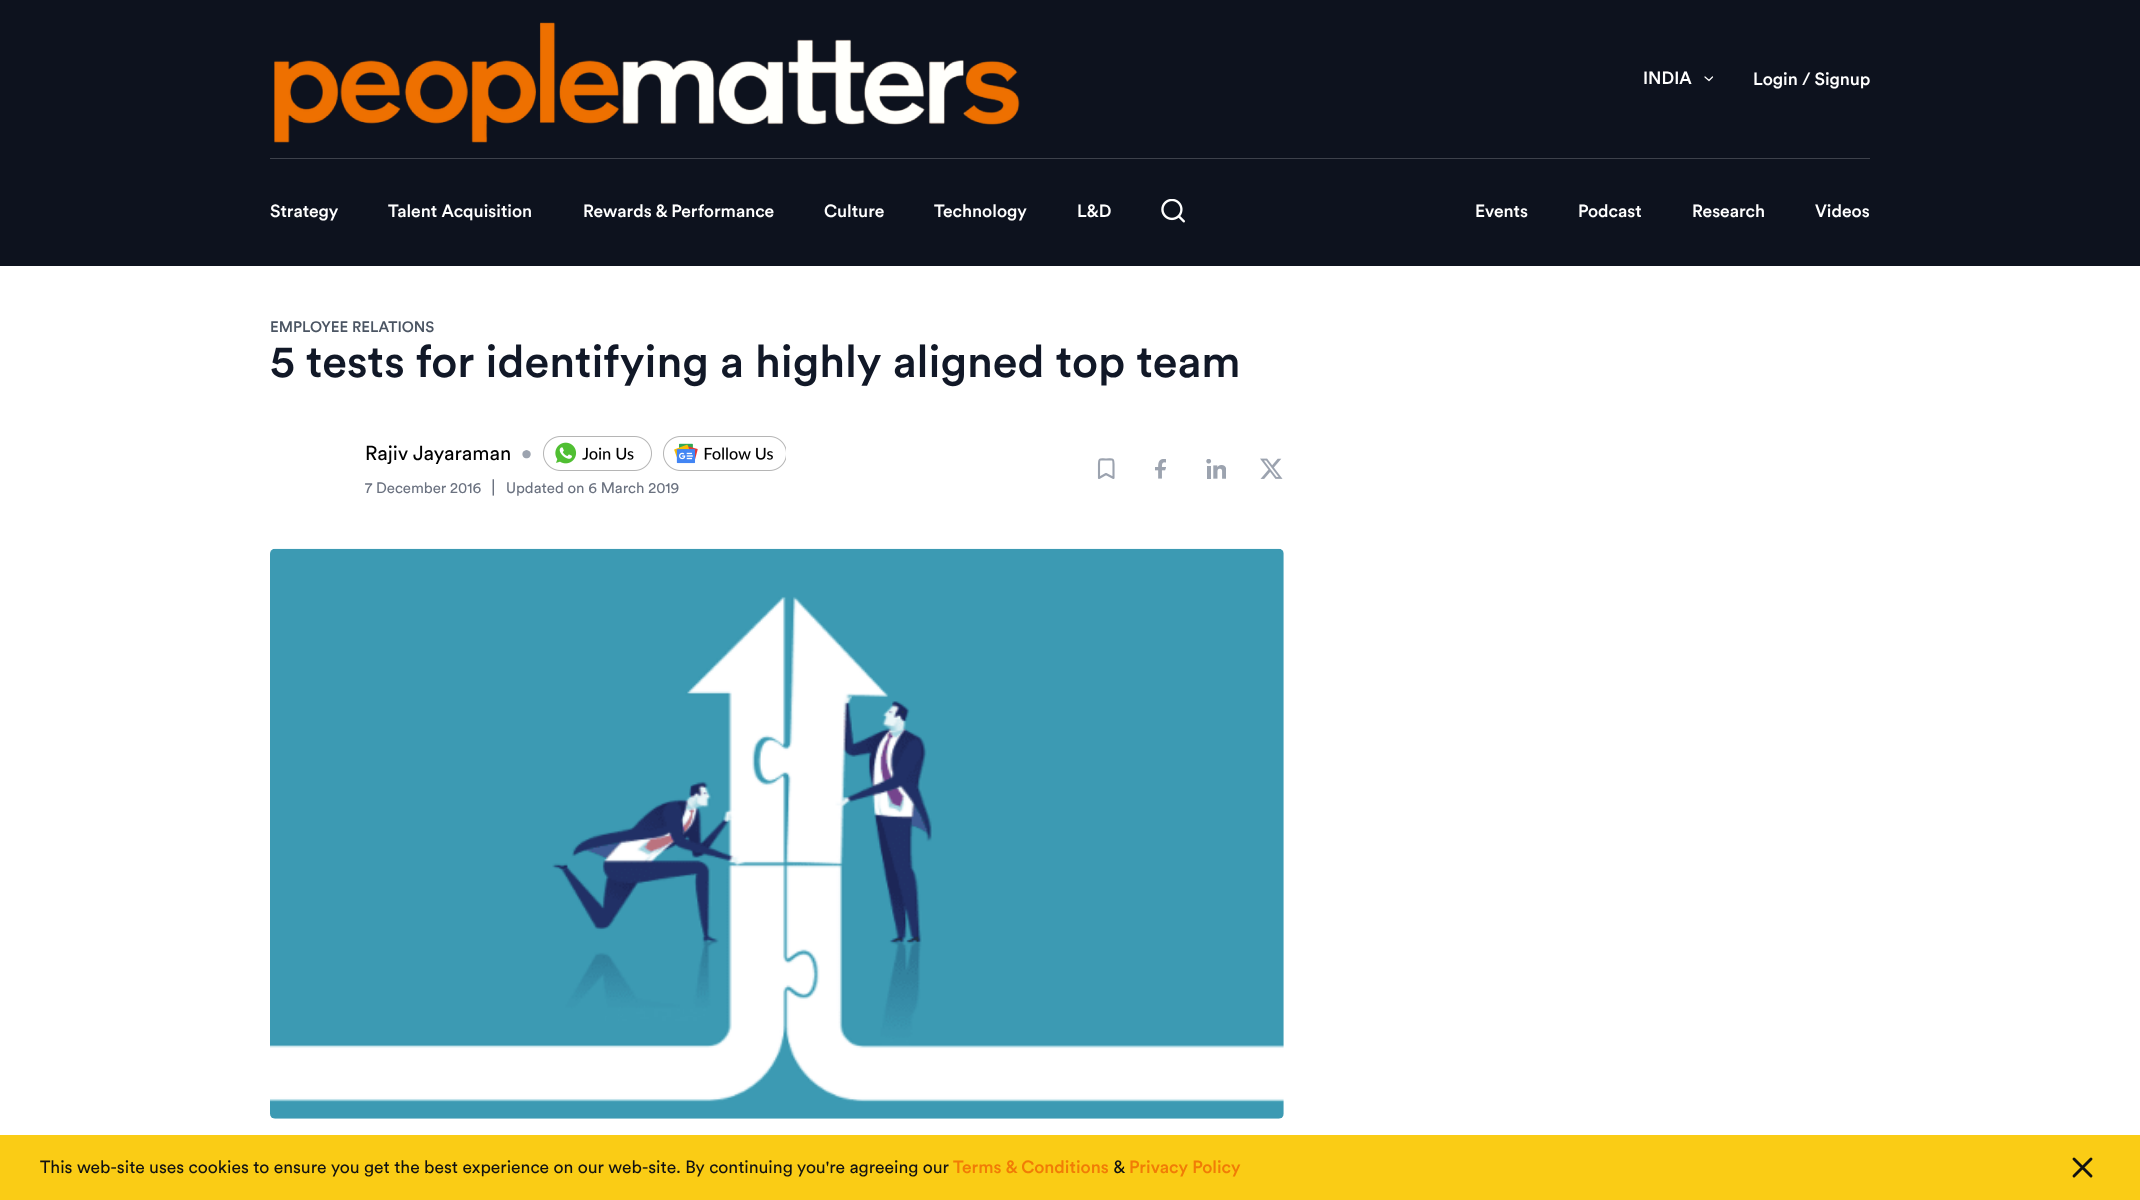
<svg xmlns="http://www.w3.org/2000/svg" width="2140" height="1200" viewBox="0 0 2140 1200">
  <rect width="100%" height="100%" fill="#fff"/>
  <path d="M0 0h2140v266H0z" fill="#0d121e"/>
  <image x="274" y="22" width="746" height="121" href="img/1.png"/>
  <path d="M1705 77L1709 80.5L1712.5 77" fill="none" stroke="#fff" stroke-width="1.2" stroke-linecap="round" stroke-linejoin="round"/>
  <path d="M270 158h1600v1H270z" fill="#3d414b"/>
  <image x="1161" y="199" width="24" height="24" href="img/2.png"/>
  <image x="543" y="436" width="109" height="35" href="img/3.png"/>
  <image x="663" y="436" width="123" height="35" href="img/4.png"/>
  <path d="M1113.5 478L1106 474L1099 478V464C1099 458 1100 459.5 1106 459.5C1112.5 459.5 1113.5 458 1113.5 464Z" fill="none" stroke="#9ca3af" stroke-width="2.1" stroke-linecap="round" stroke-linejoin="round"/>
  <image x="1155" y="459" width="11" height="20" href="img/5.png"/>
  <image x="1206" y="459" width="20" height="20" href="img/6.png"/>
  <image x="1260" y="458" width="23" height="21" href="img/7.png"/>
  <image x="270" y="548" width="1014" height="571" href="img/8.png"/>
  <path d="M0 1135h2140v65H0z" fill="#facc15"/>
  <path d="M2091 1159L2074 1176M2074 1159L2091 1176" fill="none" stroke="#121212" stroke-width="2.9" stroke-linecap="round" stroke-linejoin="round"/>
  <g font-family="Circular" font-size="17.5" font-weight="500" fill="#fff">
    <text x="1643" y="84">INDIA</text>
    <text x="1753" y="85">Login / Signup</text>
    <text x="270" y="217">Strategy</text>
    <text x="388" y="217">Talent Acquisition</text>
    <text x="583" y="217">Rewards &amp; Performance</text>
    <text x="824" y="217">Culture</text>
    <text x="934" y="217">Technology</text>
    <text x="1077" y="217">L&amp;D</text>
    <text x="1475" y="217">Events</text>
    <text x="1578" y="217">Podcast</text>
    <text x="1692" y="217">Research</text>
    <text x="1815" y="217">Videos</text>
  </g>
  <text x="270" y="332" font-family="Circular" font-size="15" font-weight="500" fill="#4b5563">EMPLOYEE RELATIONS</text>
  <text x="270" y="377" font-family="Circular" font-size="45" font-weight="500" fill="#111827">5 tests for identifying a highly aligned top team</text>
  <text x="365" y="460" font-family="Circular" font-size="20" fill="#000">Rajiv Jayaraman</text>
  <text x="521" y="460" font-family="Circular" font-size="20" fill="#9ca3af">•</text>
  <text x="365" y="493" font-family="Circular" font-size="15" fill="#6b7280">7 December 2016</text>
  <text x="491" y="493" font-family="Circular" font-size="17.5" fill="#6b7280">|</text>
  <text x="506" y="493" font-family="Circular" font-size="15" fill="#6b7280">Updated on 6 March 2019</text>
  <text x="40" y="1173" font-family="Circular" font-size="17.5" fill="#121212">This web-site uses cookies to ensure you get the best experience on our web-site. By continuing you're agreeing our</text>
  <text x="953" y="1173" font-family="Circular" font-size="17.5" font-weight="500" fill="#f17c06">Terms &amp; Conditions</text>
  <text x="1113" y="1173" font-family="Circular" font-size="17.5" fill="#121212">&amp;</text>
  <text x="1129" y="1173" font-family="Circular" font-size="17.5" font-weight="500" fill="#f17c06">Privacy Policy</text>
</svg>
